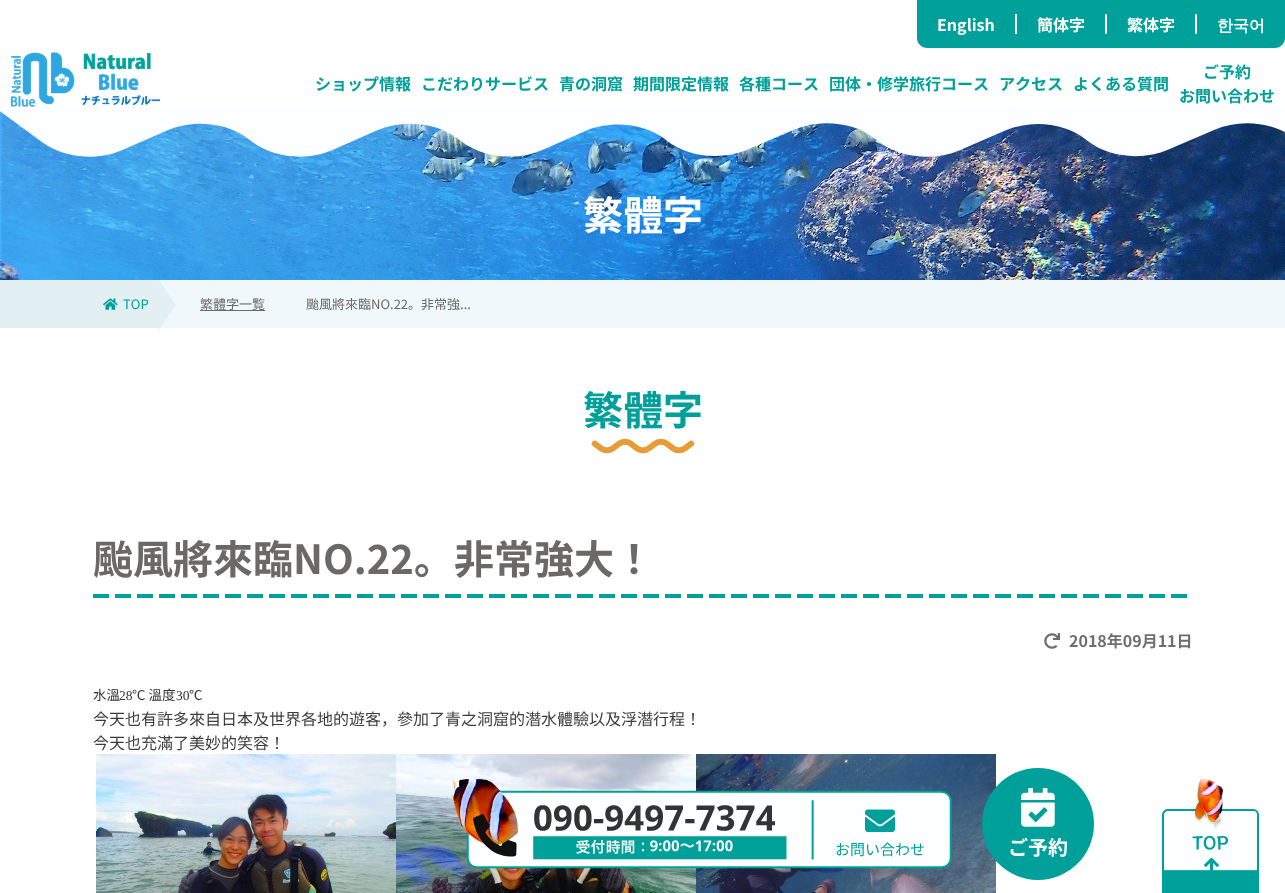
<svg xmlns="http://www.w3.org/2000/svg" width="1285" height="893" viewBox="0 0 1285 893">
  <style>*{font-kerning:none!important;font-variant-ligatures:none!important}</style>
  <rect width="100%" height="100%" fill="#fff"/>
  <path d="M917 0H1285V38C1285 43.5 1280.5 48 1275 48H927C921.5 48 917 43.5 917 38Z" fill="#00a09a"/>
  <path d="M1015 14h2v20H1015z" fill="#fff"/>
  <path d="M1105 14h2v20H1105z" fill="#fff"/>
  <path d="M1195 14h2v20H1195z" fill="#fff"/>
  <image x="0" y="111" width="1285" height="169" href="img/3.png"/>
  <image x="0" y="106" width="1285" height="51" href="img/2.png"/>
  <image x="10" y="52" width="150" height="55" href="img/1.png"/>
  <path d="M159 280h1126v48H159z" fill="#f0f8fc"/>
  <path d="M0 280h159v48H0z" fill="#e2f0f4"/>
  <image x="103" y="298" width="15" height="12" href="img/4.png"/>
  <image x="159" y="280" width="17" height="50" href="img/5.png"/>
  <path d="M200 310h65v1H200z" fill="#6a6968"/>
  <image x="591" y="438" width="104" height="16" href="img/6.png"/>
  <image x="93" y="594" width="1094" height="4" href="img/7.png"/>
  <image x="1044" y="633" width="16" height="16" href="img/8.png"/>
  <image x="96" y="754" width="300" height="139" href="img/9.png"/>
  <image x="396" y="754" width="300" height="139" href="img/10.png"/>
  <image x="696" y="754" width="300" height="139" href="img/11.png"/>
  <image x="451" y="779" width="501" height="90" href="img/12.png"/>
  <image x="865" y="809" width="30" height="23" href="img/13.png"/>
  <circle cx="1038" cy="824" r="56" fill="#00a09a"/>
  <image x="1021" y="788" width="34" height="39" href="img/14.png"/>
  <image x="1162" y="778" width="98" height="115" href="img/15.png"/>
  <g font-family="Noto Sans JP" font-size="16" font-weight="bold" fill="#fff">
    <text x="937" y="31">English</text>
    <text x="1037" y="31">簡体字</text>
    <text x="1127" y="31">繁体字</text>
  </g>
  <text x="1217" y="31" font-family="WenQuanYi Zen Hei" font-size="16" font-weight="bold" fill="#fff">한국어</text>
  <g font-family="Noto Sans JP" font-size="16" font-weight="bold" fill="#00a09a">
    <text x="315" y="90">ショップ情報</text>
    <text x="421" y="90">こだわりサービス</text>
    <text x="559" y="90">青の洞窟</text>
    <text x="633" y="90">期間限定情報</text>
    <text x="739" y="90">各種コース</text>
    <text x="829" y="90">団体・修学旅行コース</text>
    <text x="999" y="90">アクセス</text>
    <text x="1073" y="90">よくある質問</text>
    <text x="1203" y="78">ご予約</text>
    <text x="1179" y="102">お問い合わせ</text>
  </g>
  <text x="583" y="230" font-family="Noto Sans JP" font-size="40" font-weight="bold" fill="#fff">繁體字</text>
  <text x="123" y="309" font-family="Noto Sans JP" font-size="13" fill="#00a09a">TOP</text>
  <g font-family="Noto Sans JP" font-size="13" fill="#6a6968">
    <text x="200" y="309">繁體字一覧</text>
    <text x="306" y="309">颱風將來臨NO.22。非常強...</text>
  </g>
  <text x="583" y="425" font-family="Noto Sans JP" font-size="40" font-weight="bold" fill="#00a09a">繁體字</text>
  <text x="93" y="574" font-family="Noto Sans JP" font-size="40" font-weight="bold" fill="#6a6968">颱風將來臨NO.22。非常強大！</text>
  <text x="1069" y="647" font-family="Noto Sans JP" font-size="16" font-weight="bold" fill="#6e6e6e">2018年09月11日</text>
  <text x="93" y="700" font-family="Noto Sans CJK TC" font-size="13.5" fill="#333">水溫</text>
  <text x="119" y="700" font-family="Liberation Serif" font-size="13.5" fill="#333">28</text>
  <text x="132" y="700" font-family="Noto Sans CJK TC" font-size="13.5" fill="#333">℃ 溫度</text>
  <text x="176" y="700" font-family="Liberation Serif" font-size="13.5" fill="#333">30</text>
  <text x="189" y="700" font-family="Noto Sans CJK TC" font-size="13.5" fill="#333">℃</text>
  <g font-family="Noto Sans JP" font-size="16" fill="#3d3d3d">
    <text x="93" y="725">今天也有許多來自日本及世界各地的遊客，參加了青之洞窟的潛水體驗以及浮潛行程！</text>
    <text x="93" y="749">今天也充滿了美妙的笑容！</text>
  </g>
  <text x="835" y="855" font-family="Noto Sans JP" font-size="15" fill="#00a09a">お問い合わせ</text>
  <text x="1008" y="855" font-family="Noto Sans JP" font-size="20" font-weight="bold" fill="#fff">ご予約</text>
</svg>
